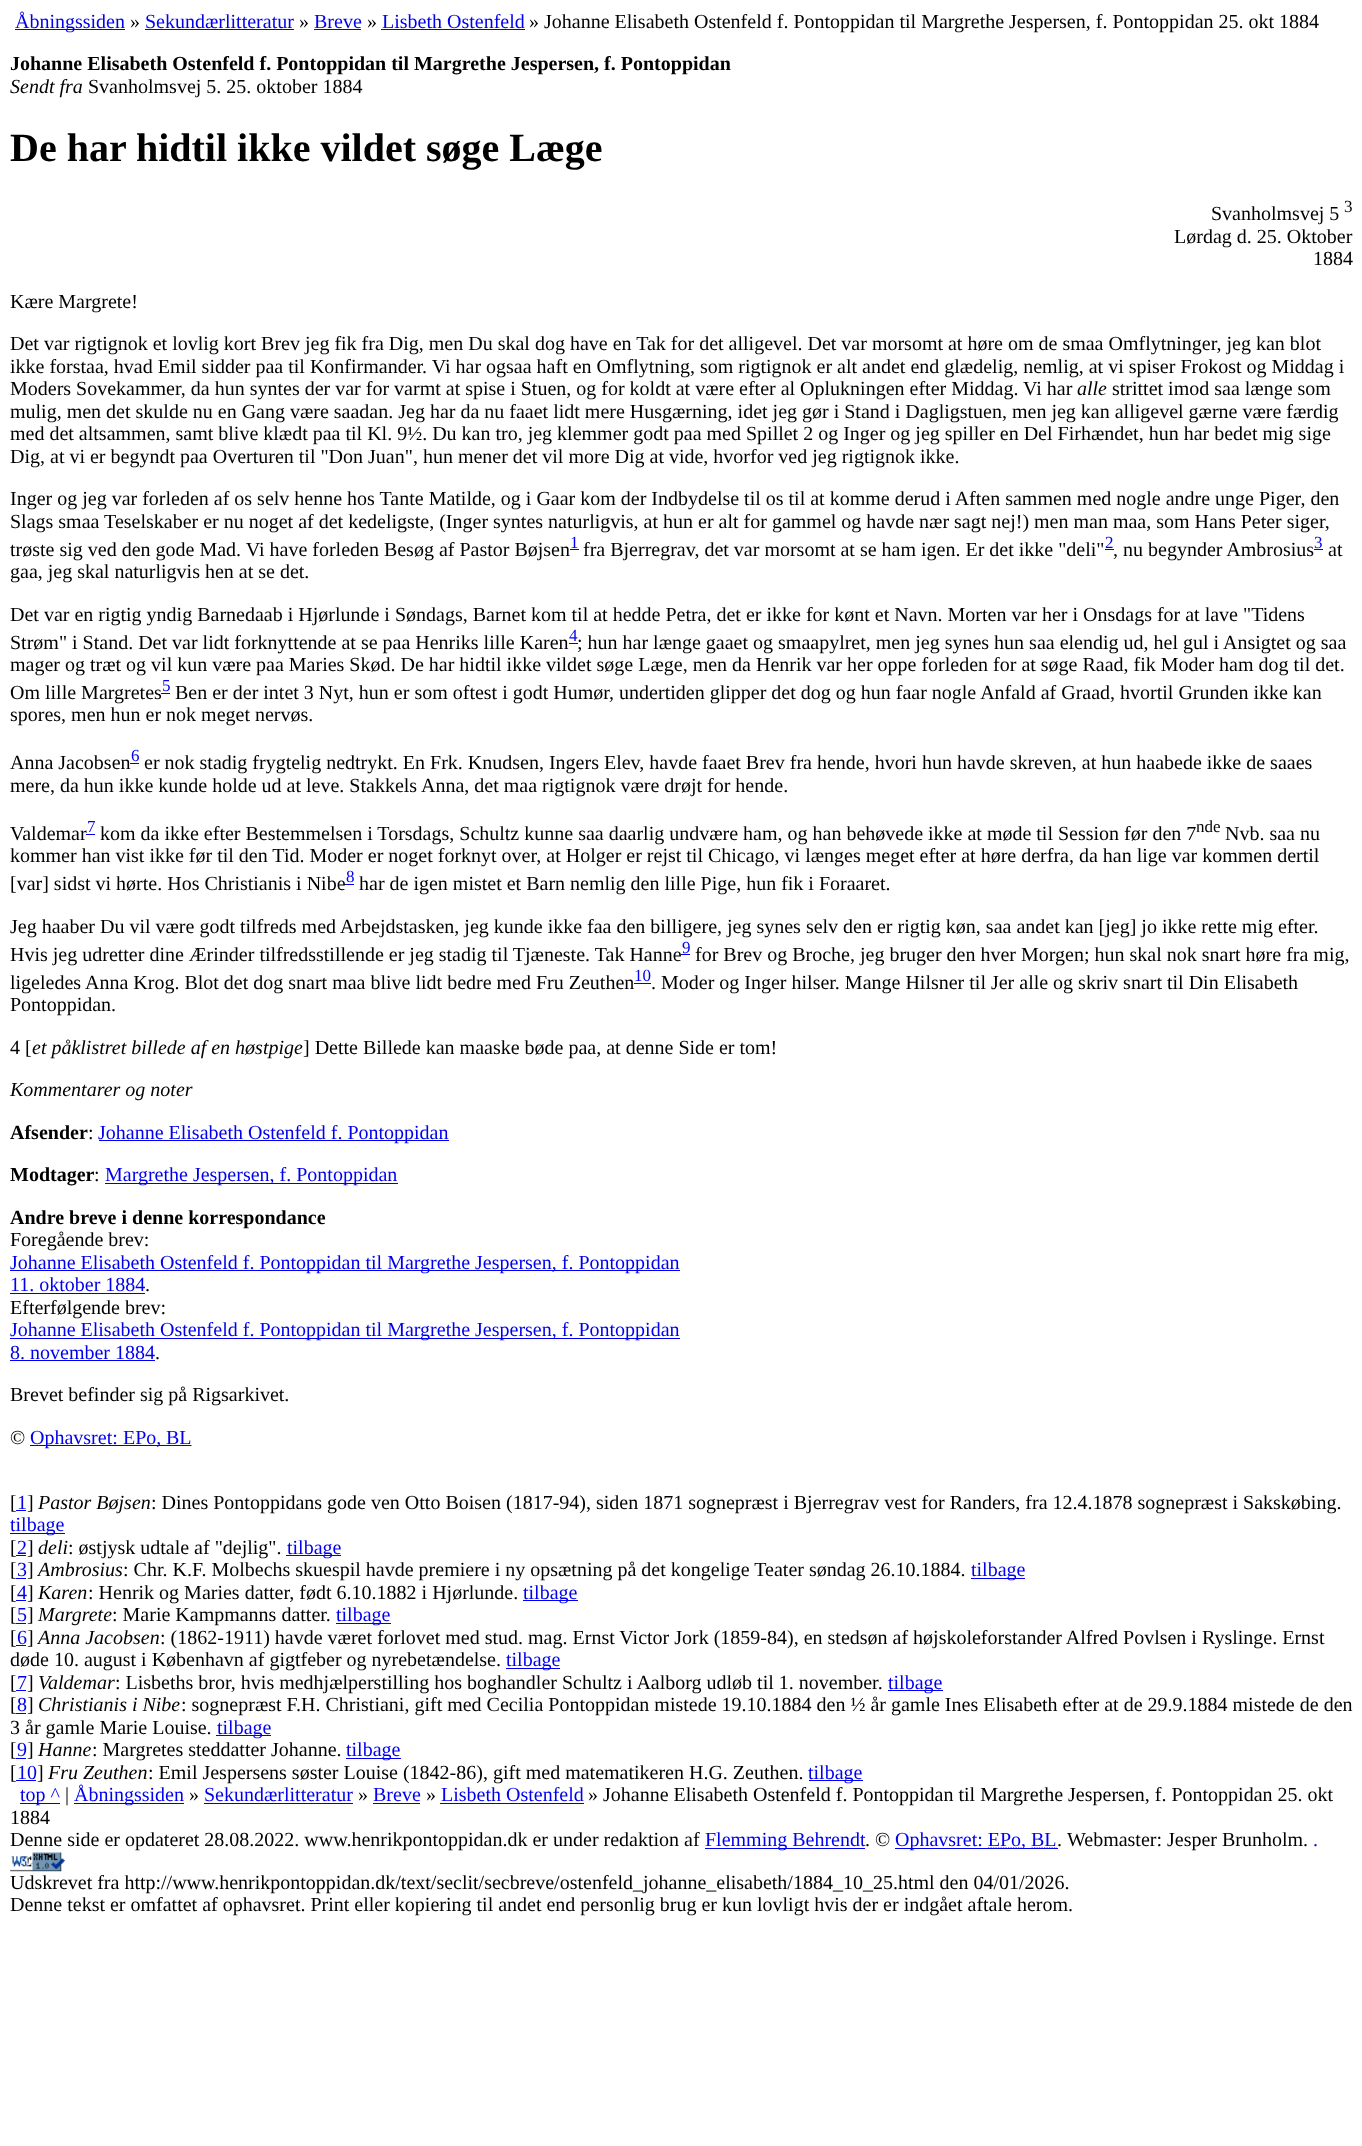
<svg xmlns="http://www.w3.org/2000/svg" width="1362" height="2146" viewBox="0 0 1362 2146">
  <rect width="100%" height="100%" fill="#fff"/>
  <path d="M15 29h110v1H15z" fill="#00e"/>
  <path d="M145 29h149v1H145z" fill="#00e"/>
  <path d="M314 29h47v1H314z" fill="#00e"/>
  <path d="M381 29h144v1H381z" fill="#00e"/>
  <path d="M570 549h9v1H570z" fill="#00e"/>
  <path d="M1105 549h9v1H1105z" fill="#00e"/>
  <path d="M1314 549h9v1H1314z" fill="#00e"/>
  <path d="M569 643h9v1H569z" fill="#00e"/>
  <path d="M345 884h9v1H345z" fill="#00e"/>
  <path d="M681 954h9v1H681z" fill="#00e"/>
  <path d="M634 983h17v1H634z" fill="#00e"/>
  <path d="M99 1140h350v1H99z" fill="#00e"/>
  <path d="M105 1183h293v1H105z" fill="#00e"/>
  <path d="M10 1270h670v1H10z" fill="#00e"/>
  <path d="M10 1293h135v1H10z" fill="#00e"/>
  <path d="M10 1338h670v1H10z" fill="#00e"/>
  <path d="M10 1360h145v1H10z" fill="#00e"/>
  <path d="M30 1445h93v1H30z" fill="#00e"/>
  <path d="M123 1445.5H156.5" fill="none" stroke="#00e" stroke-width="1.2" stroke-dasharray="1.25 1.25"/>
  <path d="M123 1445h43v1H123z" fill="#00e"/>
  <path d="M166.5 1445.5H192" fill="none" stroke="#00e" stroke-width="1.2" stroke-dasharray="1.25 1.25"/>
  <path d="M166 1445h25v1H166z" fill="#00e"/>
  <path d="M16 1510h10v1H16z" fill="#00e"/>
  <path d="M10 1533h55v1H10z" fill="#00e"/>
  <path d="M16 1555h10v1H16z" fill="#00e"/>
  <path d="M286 1555h55v1H286z" fill="#00e"/>
  <path d="M16 1578h10v1H16z" fill="#00e"/>
  <path d="M971 1578h54v1H971z" fill="#00e"/>
  <path d="M16 1600h10v1H16z" fill="#00e"/>
  <path d="M523 1600h55v1H523z" fill="#00e"/>
  <path d="M16 1623h10v1H16z" fill="#00e"/>
  <path d="M336 1623h55v1H336z" fill="#00e"/>
  <path d="M16 1645h10v1H16z" fill="#00e"/>
  <path d="M506 1668h54v1H506z" fill="#00e"/>
  <path d="M16 1690h10v1H16z" fill="#00e"/>
  <path d="M888 1690h55v1H888z" fill="#00e"/>
  <path d="M16 1713h10v1H16z" fill="#00e"/>
  <path d="M216 1735h55v1H216z" fill="#00e"/>
  <path d="M16 1758h10v1H16z" fill="#00e"/>
  <path d="M346 1758h55v1H346z" fill="#00e"/>
  <path d="M16 1780h20v1H16z" fill="#00e"/>
  <path d="M809 1780h54v1H809z" fill="#00e"/>
  <path d="M20 1803h40v1H20z" fill="#00e"/>
  <path d="M74 1803h110v1H74z" fill="#00e"/>
  <path d="M204 1803h149v1H204z" fill="#00e"/>
  <path d="M373 1803h47v1H373z" fill="#00e"/>
  <path d="M440 1803h144v1H440z" fill="#00e"/>
  <path d="M705 1848h160v1H705z" fill="#00e"/>
  <path d="M895 1848h93v1H895z" fill="#00e"/>
  <path d="M988 1848H1021.5" fill="none" stroke="#00e" stroke-width="1.2" stroke-dasharray="1.25 1.25"/>
  <path d="M988 1848h43v1H988z" fill="#00e"/>
  <path d="M1031.5 1848H1057" fill="none" stroke="#00e" stroke-width="1.2" stroke-dasharray="1.25 1.25"/>
  <path d="M1031 1848h27v1H1031z" fill="#00e"/>
  <image x="10" y="1852" width="55" height="20" href="img/1.png"/>
  <text x="15" y="28" font-family="Liberation Serif" font-size="20" fill="#00e">Åbningssiden</text>
  <text x="130" y="28" font-family="Liberation Serif" font-size="20" fill="#000">»</text>
  <text x="145" y="28" font-family="Liberation Serif" font-size="20" fill="#00e">Sekundærlitteratur</text>
  <text x="299" y="28" font-family="Liberation Serif" font-size="20" fill="#000">»</text>
  <text x="314" y="28" font-family="Liberation Serif" font-size="20" fill="#00e">Breve</text>
  <text x="367" y="28" font-family="Liberation Serif" font-size="20" fill="#000">»</text>
  <text x="382" y="28" font-family="Liberation Serif" font-size="20" fill="#00e">Lisbeth Ostenfeld</text>
  <text x="529" y="28" font-family="Liberation Serif" font-size="20" fill="#000">» Johanne Elisabeth Ostenfeld f. Pontoppidan til Margrethe Jespersen, f. Pontoppidan 25. okt 1884</text>
  <text x="10" y="70" font-family="Liberation Serif" font-size="20" font-weight="bold" fill="#000">Johanne Elisabeth Ostenfeld f. Pontoppidan til Margrethe Jespersen, f. Pontoppidan</text>
  <text x="10" y="93" font-family="Liberation Serif" font-size="20" font-style="italic" fill="#000">Sendt fra</text>
  <text x="88" y="93" font-family="Liberation Serif" font-size="20" fill="#000">Svanholmsvej 5. 25. oktober 1884</text>
  <text x="10" y="161" font-family="Liberation Serif" font-size="40" font-weight="bold" fill="#000">De har hidtil ikke vildet søge Læge</text>
  <text x="1211" y="220" font-family="Liberation Serif" font-size="20" fill="#000">Svanholmsvej 5</text>
  <text x="1344" y="212" font-family="Liberation Serif" font-size="17" fill="#000">3</text>
  <g font-family="Liberation Serif" font-size="20" fill="#000">
    <text x="1174" y="243">Lørdag d. 25. Oktober</text>
    <text x="1313" y="265">1884</text>
    <text x="10" y="308">Kære Margrete!</text>
    <text x="10" y="350">Det var rigtignok et lovlig kort Brev jeg fik fra Dig, men Du skal dog have en Tak for det alligevel. Det var morsomt at høre om de smaa Omflytninger, jeg kan blot</text>
    <text x="10" y="373">ikke forstaa, hvad Emil sidder paa til Konfirmander. Vi har ogsaa haft en Omflytning, som rigtignok er alt andet end glædelig, nemlig, at vi spiser Frokost og Middag i</text>
    <text x="10" y="395">Moders Sovekammer, da hun syntes der var for varmt at spise i Stuen, og for koldt at være efter al Oplukningen efter Middag. Vi har</text>
  </g>
  <text x="1077" y="395" font-family="Liberation Serif" font-size="20" font-style="italic" fill="#000">alle</text>
  <g font-family="Liberation Serif" font-size="20" fill="#000">
    <text x="1112" y="395">strittet imod saa længe som</text>
    <text x="10" y="418">mulig, men det skulde nu en Gang være saadan. Jeg har da nu faaet lidt mere Husgærning, idet jeg gør i Stand i Dagligstuen, men jeg kan alligevel gærne være færdig</text>
    <text x="10" y="440">med det altsammen, samt blive klædt paa til Kl. 9½. Du kan tro, jeg klemmer godt paa med Spillet 2 og Inger og jeg spiller en Del Firhændet, hun har bedet mig sige</text>
    <text x="10" y="463">Dig, at vi er begyndt paa Overturen til "Don Juan", hun mener det vil more Dig at vide, hvorfor ved jeg rigtignok ikke.</text>
    <text x="10" y="505">Inger og jeg var forleden af os selv henne hos Tante Matilde, og i Gaar kom der Indbydelse til os til at komme derud i Aften sammen med nogle andre unge Piger, den</text>
    <text x="10" y="528">Slags smaa Teselskaber er nu noget af det kedeligste, (Inger syntes naturligvis, at hun er alt for gammel og havde nær sagt nej!) men man maa, som Hans Peter siger,</text>
    <text x="10" y="556">trøste sig ved den gode Mad. Vi have forleden Besøg af Pastor Bøjsen</text>
  </g>
  <text x="570" y="548" font-family="Liberation Serif" font-size="17" fill="#00e">1</text>
  <text x="583" y="556" font-family="Liberation Serif" font-size="20" fill="#000">fra Bjerregrav, det var morsomt at se ham igen. Er det ikke "deli"</text>
  <text x="1105" y="548" font-family="Liberation Serif" font-size="17" fill="#00e">2</text>
  <text x="1113" y="556" font-family="Liberation Serif" font-size="20" fill="#000">, nu begynder Ambrosius</text>
  <text x="1314" y="548" font-family="Liberation Serif" font-size="17" fill="#00e">3</text>
  <g font-family="Liberation Serif" font-size="20" fill="#000">
    <text x="1328" y="556">at</text>
    <text x="10" y="578">gaa, jeg skal naturligvis hen at se det.</text>
    <text x="10" y="621">Det var en rigtig yndig Barnedaab i Hjørlunde i Søndags, Barnet kom til at hedde Petra, det er ikke for kønt et Navn. Morten var her i Onsdags for at lave "Tidens</text>
    <text x="10" y="649">Strøm" i Stand. Det var lidt forknyttende at se paa Henriks lille Karen</text>
  </g>
  <text x="569" y="641" font-family="Liberation Serif" font-size="17" fill="#00e">4</text>
  <g font-family="Liberation Serif" font-size="20" fill="#000">
    <text x="577" y="649">; hun har længe gaaet og smaapylret, men jeg synes hun saa elendig ud, hel gul i Ansigtet og saa</text>
    <text x="10" y="671">mager og træt og vil kun være paa Maries Skød. De har hidtil ikke vildet søge Læge, men da Henrik var her oppe forleden for at søge Raad, fik Moder ham dog til det.</text>
    <text x="10" y="699">Om lille Margretes</text>
  </g>
  <text x="162" y="691" font-family="Liberation Serif" font-size="17" fill="#00e">5</text>
  <path d="M161 693h9v1H161z" fill="#00e"/>
  <g font-family="Liberation Serif" font-size="20" fill="#000">
    <text x="175" y="699">Ben er der intet 3 Nyt, hun er som oftest i godt Humør, undertiden glipper det dog og hun faar nogle Anfald af Graad, hvortil Grunden ikke kan</text>
    <text x="10" y="721">spores, men hun er nok meget nervøs.</text>
    <text x="10" y="769">Anna Jacobsen</text>
  </g>
  <text x="131" y="761" font-family="Liberation Serif" font-size="17" fill="#00e">6</text>
  <path d="M130 763h9v1H130z" fill="#00e"/>
  <g font-family="Liberation Serif" font-size="20" fill="#000">
    <text x="144" y="769">er nok stadig frygtelig nedtrykt. En Frk. Knudsen, Ingers Elev, havde faaet Brev fra hende, hvori hun havde skreven, at hun haabede ikke de saaes</text>
    <text x="10" y="792">mere, da hun ikke kunde holde ud at leve. Stakkels Anna, det maa rigtignok være drøjt for hende.</text>
    <text x="10" y="840">Valdemar</text>
  </g>
  <text x="87" y="832" font-family="Liberation Serif" font-size="17" fill="#00e">7</text>
  <path d="M86 834h9v1H86z" fill="#00e"/>
  <text x="100" y="840" font-family="Liberation Serif" font-size="20" fill="#000">kom da ikke efter Bestemmelsen i Torsdags, Schultz kunne saa daarlig undvære ham, og han behøvede ikke at møde til Session før den 7</text>
  <text x="1196" y="832" font-family="Liberation Serif" font-size="17" fill="#000">nde</text>
  <g font-family="Liberation Serif" font-size="20" fill="#000">
    <text x="1225" y="840">Nvb. saa nu</text>
    <text x="10" y="862">kommer han vist ikke før til den Tid. Moder er noget forknyt over, at Holger er rejst til Chicago, vi længes meget efter at høre derfra, da han lige var kommen dertil</text>
    <text x="10" y="890">[var] sidst vi hørte. Hos Christianis i Nibe</text>
  </g>
  <text x="346" y="882" font-family="Liberation Serif" font-size="17" fill="#00e">8</text>
  <g font-family="Liberation Serif" font-size="20" fill="#000">
    <text x="359" y="890">har de igen mistet et Barn nemlig den lille Pige, hun fik i Foraaret.</text>
    <text x="10" y="933">Jeg haaber Du vil være godt tilfreds med Arbejdstasken, jeg kunde ikke faa den billigere, jeg synes selv den er rigtig køn, saa andet kan [jeg] jo ikke rette mig efter.</text>
    <text x="10" y="961">Hvis jeg udretter dine Ærinder tilfredsstillende er jeg stadig til Tjæneste. Tak Hanne</text>
  </g>
  <text x="682" y="953" font-family="Liberation Serif" font-size="17" fill="#00e">9</text>
  <g font-family="Liberation Serif" font-size="20" fill="#000">
    <text x="695" y="961">for Brev og Broche, jeg bruger den hver Morgen; hun skal nok snart høre fra mig,</text>
    <text x="10" y="989">ligeledes Anna Krog. Blot det dog snart maa blive lidt bedre med Fru Zeuthen</text>
  </g>
  <text x="634" y="981" font-family="Liberation Serif" font-size="17" fill="#00e">10</text>
  <g font-family="Liberation Serif" font-size="20" fill="#000">
    <text x="651" y="989">. Moder og Inger hilser. Mange Hilsner til Jer alle og skriv snart til Din Elisabeth</text>
    <text x="10" y="1011">Pontoppidan.</text>
    <text x="10" y="1054">4 [</text>
  </g>
  <text x="32" y="1054" font-family="Liberation Serif" font-size="20" font-style="italic" fill="#000">et påklistret billede af en høstpige</text>
  <text x="303" y="1054" font-family="Liberation Serif" font-size="20" fill="#000">] Dette Billede kan maaske bøde paa, at denne Side er tom!</text>
  <text x="10" y="1096" font-family="Liberation Serif" font-size="20" font-style="italic" fill="#000">Kommentarer og noter</text>
  <text x="10" y="1139" font-family="Liberation Serif" font-size="20" font-weight="bold" fill="#000">Afsender</text>
  <text x="88" y="1139" font-family="Liberation Serif" font-size="20" fill="#000">:</text>
  <text x="98" y="1139" font-family="Liberation Serif" font-size="20" fill="#00e">Johanne Elisabeth Ostenfeld f. Pontoppidan</text>
  <text x="10" y="1181" font-family="Liberation Serif" font-size="20" font-weight="bold" fill="#000">Modtager</text>
  <text x="94" y="1181" font-family="Liberation Serif" font-size="20" fill="#000">:</text>
  <text x="105" y="1181" font-family="Liberation Serif" font-size="20" fill="#00e">Margrethe Jespersen, f. Pontoppidan</text>
  <text x="10" y="1224" font-family="Liberation Serif" font-size="20" font-weight="bold" fill="#000">Andre breve i denne korrespondance</text>
  <text x="10" y="1246" font-family="Liberation Serif" font-size="20" fill="#000">Foregående brev:</text>
  <g font-family="Liberation Serif" font-size="20" fill="#00e">
    <text x="10" y="1269">Johanne Elisabeth Ostenfeld f. Pontoppidan til Margrethe Jespersen, f. Pontoppidan</text>
    <text x="10" y="1291">11. oktober 1884</text>
  </g>
  <g font-family="Liberation Serif" font-size="20" fill="#000">
    <text x="145" y="1291">.</text>
    <text x="10" y="1314">Efterfølgende brev:</text>
  </g>
  <g font-family="Liberation Serif" font-size="20" fill="#00e">
    <text x="10" y="1336">Johanne Elisabeth Ostenfeld f. Pontoppidan til Margrethe Jespersen, f. Pontoppidan</text>
    <text x="10" y="1359">8. november 1884</text>
  </g>
  <g font-family="Liberation Serif" font-size="20" fill="#000">
    <text x="155" y="1359">.</text>
    <text x="10" y="1401">Brevet befinder sig på Rigsarkivet.</text>
    <text x="10" y="1444">©</text>
  </g>
  <g font-family="Liberation Serif" font-size="20" fill="#00e">
    <text x="30" y="1444">Ophavsret:</text>
    <text x="123" y="1444">EPo,</text>
    <text x="166" y="1444">BL</text>
  </g>
  <text x="10" y="1509" font-family="Liberation Serif" font-size="20" fill="#000">[</text>
  <text x="17" y="1509" font-family="Liberation Serif" font-size="20" fill="#00e">1</text>
  <text x="27" y="1509" font-family="Liberation Serif" font-size="20" fill="#000">]</text>
  <text x="38" y="1509" font-family="Liberation Serif" font-size="20" font-style="italic" fill="#000">Pastor Bøjsen</text>
  <text x="151" y="1509" font-family="Liberation Serif" font-size="20" fill="#000">: Dines Pontoppidans gode ven Otto Boisen (1817-94), siden 1871 sognepræst i Bjerregrav vest for Randers, fra 12.4.1878 sognepræst i Sakskøbing.</text>
  <text x="10" y="1531" font-family="Liberation Serif" font-size="20" fill="#00e">tilbage</text>
  <text x="10" y="1554" font-family="Liberation Serif" font-size="20" fill="#000">[</text>
  <text x="17" y="1554" font-family="Liberation Serif" font-size="20" fill="#00e">2</text>
  <text x="27" y="1554" font-family="Liberation Serif" font-size="20" fill="#000">]</text>
  <text x="38" y="1554" font-family="Liberation Serif" font-size="20" font-style="italic" fill="#000">deli</text>
  <text x="68" y="1554" font-family="Liberation Serif" font-size="20" fill="#000">: østjysk udtale af "dejlig".</text>
  <text x="287" y="1554" font-family="Liberation Serif" font-size="20" fill="#00e">tilbage</text>
  <text x="10" y="1576" font-family="Liberation Serif" font-size="20" fill="#000">[</text>
  <text x="17" y="1576" font-family="Liberation Serif" font-size="20" fill="#00e">3</text>
  <text x="27" y="1576" font-family="Liberation Serif" font-size="20" fill="#000">]</text>
  <text x="38" y="1576" font-family="Liberation Serif" font-size="20" font-style="italic" fill="#000">Ambrosius</text>
  <text x="123" y="1576" font-family="Liberation Serif" font-size="20" fill="#000">: Chr. K.F. Molbechs skuespil havde premiere i ny opsætning på det kongelige Teater søndag 26.10.1884.</text>
  <text x="971" y="1576" font-family="Liberation Serif" font-size="20" fill="#00e">tilbage</text>
  <text x="10" y="1599" font-family="Liberation Serif" font-size="20" fill="#000">[</text>
  <text x="17" y="1599" font-family="Liberation Serif" font-size="20" fill="#00e">4</text>
  <text x="27" y="1599" font-family="Liberation Serif" font-size="20" fill="#000">]</text>
  <text x="38" y="1599" font-family="Liberation Serif" font-size="20" font-style="italic" fill="#000">Karen</text>
  <text x="88" y="1599" font-family="Liberation Serif" font-size="20" fill="#000">: Henrik og Maries datter, født 6.10.1882 i Hjørlunde.</text>
  <text x="523" y="1599" font-family="Liberation Serif" font-size="20" fill="#00e">tilbage</text>
  <text x="10" y="1621" font-family="Liberation Serif" font-size="20" fill="#000">[</text>
  <text x="17" y="1621" font-family="Liberation Serif" font-size="20" fill="#00e">5</text>
  <text x="27" y="1621" font-family="Liberation Serif" font-size="20" fill="#000">]</text>
  <text x="38" y="1621" font-family="Liberation Serif" font-size="20" font-style="italic" fill="#000">Margrete</text>
  <text x="112" y="1621" font-family="Liberation Serif" font-size="20" fill="#000">: Marie Kampmanns datter.</text>
  <text x="336" y="1621" font-family="Liberation Serif" font-size="20" fill="#00e">tilbage</text>
  <text x="10" y="1644" font-family="Liberation Serif" font-size="20" fill="#000">[</text>
  <text x="17" y="1644" font-family="Liberation Serif" font-size="20" fill="#00e">6</text>
  <text x="27" y="1644" font-family="Liberation Serif" font-size="20" fill="#000">]</text>
  <text x="38" y="1644" font-family="Liberation Serif" font-size="20" font-style="italic" fill="#000">Anna Jacobsen</text>
  <g font-family="Liberation Serif" font-size="20" fill="#000">
    <text x="160" y="1644">: (1862-1911) havde været forlovet med stud. mag. Ernst Victor Jork (1859-84), en stedsøn af højskoleforstander Alfred Povlsen i Ryslinge. Ernst</text>
    <text x="10" y="1666">døde 10. august i København af gigtfeber og nyrebetændelse.</text>
  </g>
  <text x="506" y="1666" font-family="Liberation Serif" font-size="20" fill="#00e">tilbage</text>
  <text x="10" y="1689" font-family="Liberation Serif" font-size="20" fill="#000">[</text>
  <text x="17" y="1689" font-family="Liberation Serif" font-size="20" fill="#00e">7</text>
  <text x="27" y="1689" font-family="Liberation Serif" font-size="20" fill="#000">]</text>
  <text x="38" y="1689" font-family="Liberation Serif" font-size="20" font-style="italic" fill="#000">Valdemar</text>
  <text x="115" y="1689" font-family="Liberation Serif" font-size="20" fill="#000">: Lisbeths bror, hvis medhjælperstilling hos boghandler Schultz i Aalborg udløb til 1. november.</text>
  <text x="888" y="1689" font-family="Liberation Serif" font-size="20" fill="#00e">tilbage</text>
  <text x="10" y="1711" font-family="Liberation Serif" font-size="20" fill="#000">[</text>
  <text x="17" y="1711" font-family="Liberation Serif" font-size="20" fill="#00e">8</text>
  <text x="27" y="1711" font-family="Liberation Serif" font-size="20" fill="#000">]</text>
  <text x="38" y="1711" font-family="Liberation Serif" font-size="20" font-style="italic" fill="#000">Christianis i Nibe</text>
  <g font-family="Liberation Serif" font-size="20" fill="#000">
    <text x="181" y="1711">: sognepræst F.H. Christiani, gift med Cecilia Pontoppidan mistede 19.10.1884 den ½ år gamle Ines Elisabeth efter at de 29.9.1884 mistede de den</text>
    <text x="10" y="1734">3 år gamle Marie Louise.</text>
  </g>
  <text x="217" y="1734" font-family="Liberation Serif" font-size="20" fill="#00e">tilbage</text>
  <text x="10" y="1756" font-family="Liberation Serif" font-size="20" fill="#000">[</text>
  <text x="17" y="1756" font-family="Liberation Serif" font-size="20" fill="#00e">9</text>
  <text x="27" y="1756" font-family="Liberation Serif" font-size="20" fill="#000">]</text>
  <text x="38" y="1756" font-family="Liberation Serif" font-size="20" font-style="italic" fill="#000">Hanne</text>
  <text x="92" y="1756" font-family="Liberation Serif" font-size="20" fill="#000">: Margretes steddatter Johanne.</text>
  <text x="346" y="1756" font-family="Liberation Serif" font-size="20" fill="#00e">tilbage</text>
  <text x="10" y="1779" font-family="Liberation Serif" font-size="20" fill="#000">[</text>
  <text x="17" y="1779" font-family="Liberation Serif" font-size="20" fill="#00e">10</text>
  <text x="37" y="1779" font-family="Liberation Serif" font-size="20" fill="#000">]</text>
  <text x="48" y="1779" font-family="Liberation Serif" font-size="20" font-style="italic" fill="#000">Fru Zeuthen</text>
  <text x="148" y="1779" font-family="Liberation Serif" font-size="20" fill="#000">: Emil Jespersens søster Louise (1842-86), gift med matematikeren H.G. Zeuthen.</text>
  <g font-family="Liberation Serif" font-size="20" fill="#00e">
    <text x="808" y="1779">tilbage</text>
    <text x="20" y="1801">top ^</text>
  </g>
  <text x="65" y="1801" font-family="Liberation Serif" font-size="20" fill="#000">|</text>
  <text x="74" y="1801" font-family="Liberation Serif" font-size="20" fill="#00e">Åbningssiden</text>
  <text x="189" y="1801" font-family="Liberation Serif" font-size="20" fill="#000">»</text>
  <text x="204" y="1801" font-family="Liberation Serif" font-size="20" fill="#00e">Sekundærlitteratur</text>
  <text x="358" y="1801" font-family="Liberation Serif" font-size="20" fill="#000">»</text>
  <text x="373" y="1801" font-family="Liberation Serif" font-size="20" fill="#00e">Breve</text>
  <text x="426" y="1801" font-family="Liberation Serif" font-size="20" fill="#000">»</text>
  <text x="441" y="1801" font-family="Liberation Serif" font-size="20" fill="#00e">Lisbeth Ostenfeld</text>
  <g font-family="Liberation Serif" font-size="20" fill="#000">
    <text x="588" y="1801">» Johanne Elisabeth Ostenfeld f. Pontoppidan til Margrethe Jespersen, f. Pontoppidan 25. okt</text>
    <text x="10" y="1824">1884</text>
    <text x="10" y="1846">Denne side er opdateret 28.08.2022. www.henrikpontoppidan.dk er under redaktion af</text>
  </g>
  <text x="705" y="1846" font-family="Liberation Serif" font-size="20" fill="#00e">Flemming Behrendt</text>
  <text x="865" y="1846" font-family="Liberation Serif" font-size="20" fill="#000">. ©</text>
  <g font-family="Liberation Serif" font-size="20" fill="#00e">
    <text x="895" y="1846">Ophavsret: EPo</text>
    <text x="1021" y="1846">, BL</text>
  </g>
  <g font-family="Liberation Serif" font-size="20" fill="#000">
    <text x="1057" y="1846">.</text>
    <text x="1067" y="1846">Webmaster: Jesper Brunholm.</text>
  </g>
  <text x="1313" y="1846" font-family="Liberation Serif" font-size="20" fill="#00e">.</text>
  <g font-family="Liberation Serif" font-size="20" fill="#000">
    <text x="10" y="1889">Udskrevet fra http://www.henrikpontoppidan.dk/text/seclit/secbreve/ostenfeld_johanne_elisabeth/1884_10_25.html den 04/01/2026.</text>
    <text x="10" y="1911">Denne tekst er omfattet af ophavsret. Print eller kopiering til andet end personlig brug er kun lovligt hvis der er indgået aftale herom.</text>
  </g>
</svg>
